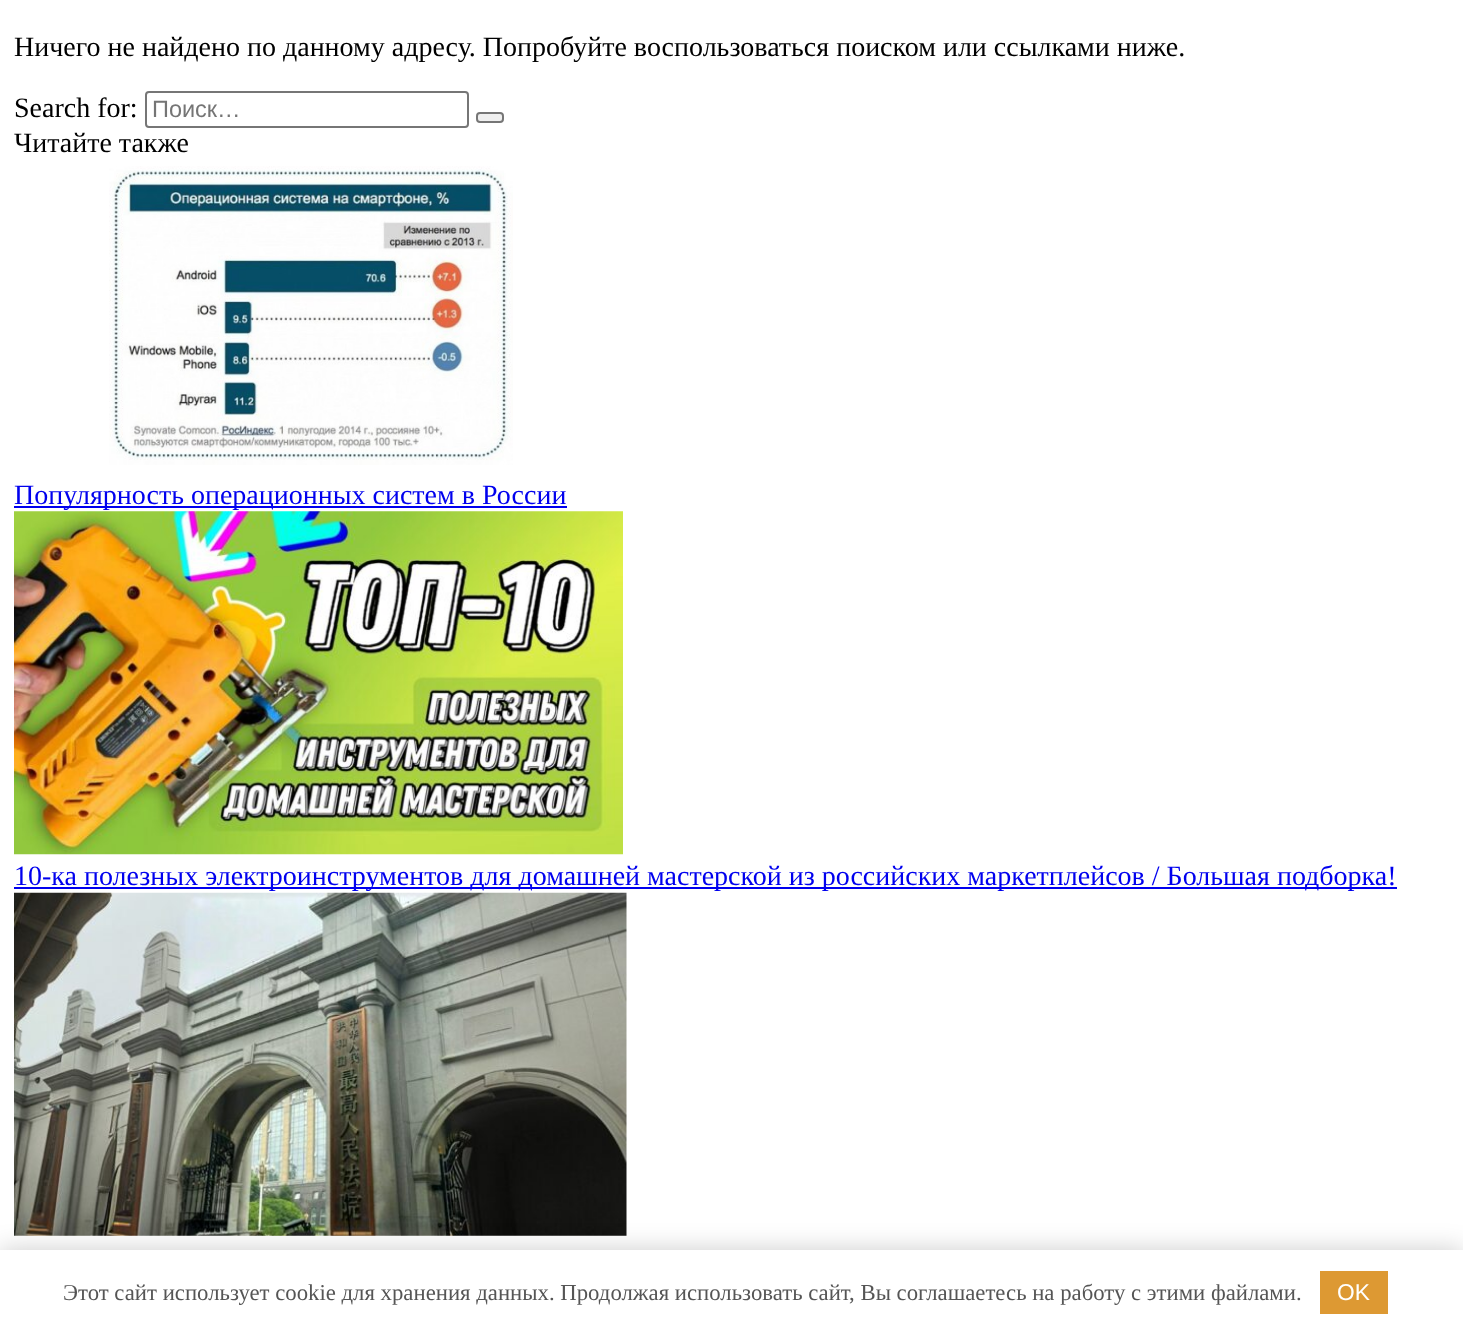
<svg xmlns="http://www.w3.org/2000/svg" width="1463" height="1334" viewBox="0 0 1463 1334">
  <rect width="100%" height="100%" fill="#fff"/>
  <rect x="146" y="92" width="322" height="35" rx="3" fill="none" stroke="#767676" stroke-width="2"/>
  <rect x="477" y="113" width="26" height="9" rx="3" fill="#efefef" stroke="#767676" stroke-width="2"/>
  <image x="109" y="166" width="404" height="299" href="img/1.png"/>
  <path d="M14 506h553v2H14z" fill="#00e"/>
  <image x="14" y="511" width="609" height="344" href="img/2.png"/>
  <path d="M14 887h1383v2H14z" fill="#00e"/>
  <image x="14" y="892" width="613" height="344" href="img/3.png"/>
  <path d="M0 1250h1463v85H0z" fill="#00000033" filter="blur(13px)"/>
  <path d="M0 1250h1463v84H0z" fill="#fff"/>
  <path d="M1320 1271h68v43H1320z" fill="#d93"/>
  <g font-family="Liberation Serif" font-size="28" fill="#000">
    <text x="14" y="56">Ничего не найдено по данному адресу. Попробуйте воспользоваться поиском или ссылками ниже.</text>
    <text x="14" y="117">Search for:</text>
  </g>
  <text x="152" y="117" font-family="Liberation Sans" font-size="23.5" fill="#757575">Поиск…</text>
  <text x="14" y="152" font-family="Liberation Serif" font-size="28" fill="#000">Читайте также</text>
  <g font-family="Liberation Serif" font-size="28" fill="#00e">
    <text x="14" y="504">Популярность операционных систем в России</text>
    <text x="14" y="885">10-ка полезных электроинструментов для домашней мастерской из российских маркетплейсов / Большая подборка!</text>
  </g>
  <text x="63" y="1300" font-family="Liberation Serif" font-size="22.75" fill="#555">Этот сайт использует cookie для хранения данных. Продолжая использовать сайт, Вы соглашаетесь на работу с этими файлами.</text>
  <text x="1337" y="1300" font-family="Liberation Sans" font-size="22.75" fill="#fff">OK</text>
</svg>
